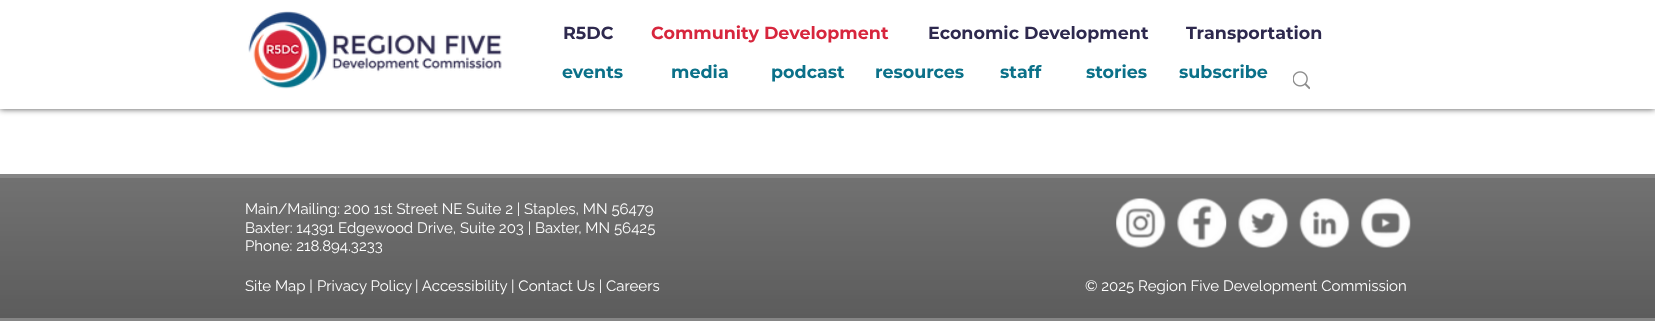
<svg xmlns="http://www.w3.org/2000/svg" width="1655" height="321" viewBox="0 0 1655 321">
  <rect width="100%" height="100%" fill="#fff"/>
  <path d="M0 0h1655v109H0z" fill="#000000b3" filter="blur(3px)"/>
  <path d="M0 0h1655v109H0z" fill="#fff"/>
  <image x="248" y="11" width="254" height="78" href="img/1.png"/>
  <image x="1293" y="71" width="17" height="19" href="img/2.png"/>
  <path d="M0 178h1655v140H0z" fill="#414141"/>
  <image x="0" y="178" width="1655" height="140" href="img/3.png"/>
  <path d="M0 174h1655v4H0z" fill="#858585"/>
  <path d="M0 318h1655v3H0z" fill="#858585"/>
  <image x="1116" y="198" width="50" height="50" href="img/4.png"/>
  <image x="1177" y="198" width="50" height="50" href="img/5.png"/>
  <image x="1238" y="198" width="51" height="50" href="img/6.png"/>
  <image x="1299" y="198" width="51" height="50" href="img/7.png"/>
  <image x="1361" y="198" width="50" height="50" href="img/8.png"/>
  <text x="563" y="39" font-family="Montserrat" font-size="17.5" font-weight="bold" fill="#2e294e">R5DC</text>
  <text x="651" y="39" font-family="Montserrat" font-size="17.5" font-weight="bold" fill="#d7263d">Community Development</text>
  <g font-family="Montserrat" font-size="17.5" font-weight="bold" fill="#2e294e">
    <text x="928" y="39">Economic Development</text>
    <text x="1186" y="39">Transportation</text>
  </g>
  <g font-family="Montserrat" font-size="17.5" font-weight="bold" fill="#0b7189">
    <text x="562" y="78">events</text>
    <text x="671" y="78">media</text>
    <text x="771" y="78">podcast</text>
    <text x="875" y="78">resources</text>
    <text x="1000" y="78">staff</text>
    <text x="1086" y="78">stories</text>
    <text x="1179" y="78">subscribe</text>
  </g>
  <g font-family="Raleway" font-size="15" fill="#fff">
    <text x="245" y="214">Main/Mailing: 200 1st Street NE Suite 2 | Staples, MN 56479</text>
    <text x="245" y="233">Baxter: 14391 Edgewood Drive, Suite 203 | Baxter, MN 56425</text>
    <text x="245" y="251">Phone: 218.894.3233</text>
    <text x="245" y="291">Site Map |</text>
    <text x="317" y="291">Privacy Policy</text>
    <text x="415" y="291">| Accessibility | Contact Us | Careers</text>
    <text x="1085" y="291">© 2025 Region Five Development Commission</text>
  </g>
</svg>
